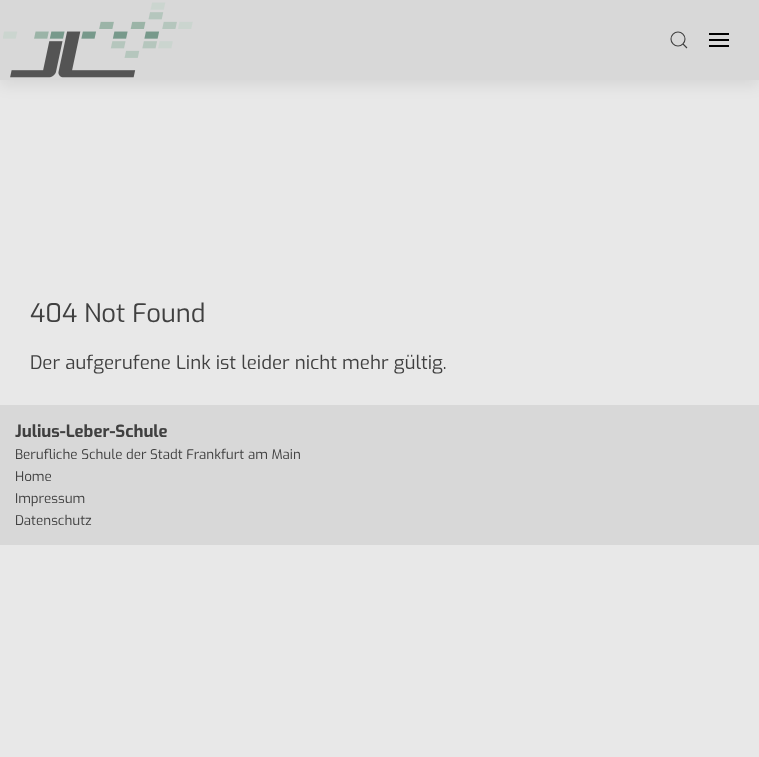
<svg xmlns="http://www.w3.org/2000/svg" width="759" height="757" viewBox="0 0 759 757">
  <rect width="100%" height="100%" fill="#e8e8e8"/>
  <path d="M0 5h759v80H0z" fill="#00000014" filter="blur(7.5px)"/>
  <path d="M0 0h759v80H0z" fill="#d8d8d8"/>
  <image x="3" y="2" width="190" height="76" href="img/1.png"/>
  <circle cx="678" cy="39" r="7" fill="none" stroke="#404040" stroke-width="1.1"/>
  <path d="M683 44L687 48Z" fill="none" stroke="#404040" stroke-width="1.1"/>
  <path d="M709 33h20v2H709z" fill="#000"/>
  <path d="M709 39h20v2H709z" fill="#000"/>
  <path d="M709 45h20v2H709z" fill="#000"/>
  <path d="M0 405h759v140H0z" fill="#d8d8d8"/>
  <text x="30" y="322" font-family="Exo" font-size="25.5" fill="#404040">404 Not Found</text>
  <text x="30" y="369" font-family="Exo" font-size="18.7" fill="#404040">Der aufgerufene Link ist leider nicht mehr gültig.</text>
  <text x="15" y="437" font-family="Exo" font-size="16.75" font-weight="bold" fill="#404040">Julius-Leber-Schule</text>
  <g font-family="Exo" font-size="13.4" fill="#404040">
    <text x="15" y="459">Berufliche Schule der Stadt Frankfurt am Main</text>
    <text x="15" y="481">Home</text>
    <text x="15" y="503">Impressum</text>
    <text x="15" y="525">Datenschutz</text>
  </g>
</svg>
